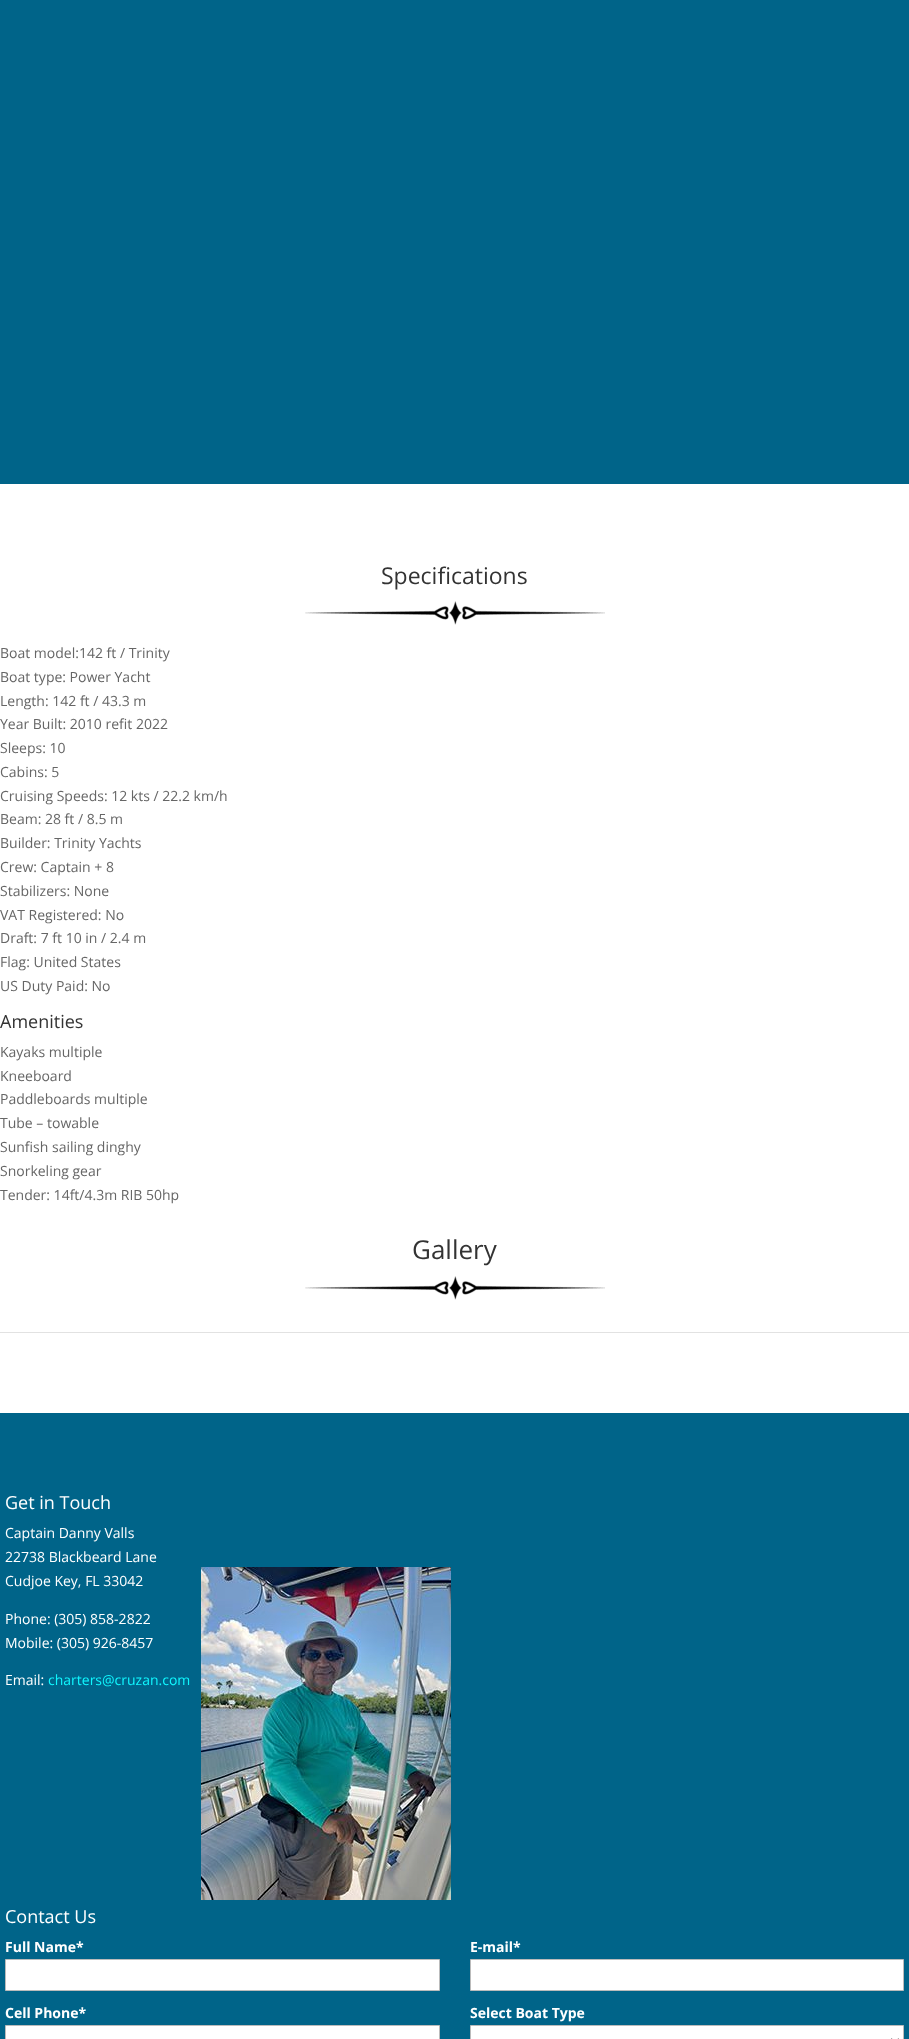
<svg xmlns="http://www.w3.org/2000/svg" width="909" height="2039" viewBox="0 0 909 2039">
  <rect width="100%" height="100%" fill="#fff"/>
  <path d="M0 0h909v484H0z" fill="#006489"/>
  <image x="305" y="601" width="300" height="24" href="img/1.png"/>
  <image x="305" y="1276" width="300" height="24" href="img/1.png"/>
  <path d="M0 1332h909v1H0z" fill="#e2e2e2"/>
  <path d="M0 1413h909v626H0z" fill="#006489"/>
  <image x="201" y="1567" width="250" height="333" href="img/2.png"/>
  <path d="M5.5 1959.5h434v31H5.5z" fill="#fff" stroke="#bbb"/>
  <path d="M470.5 1959.5h433v31H470.5z" fill="#fff" stroke="#bbb"/>
  <path d="M5.5 2025.5h434v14H5.5z" fill="#fff" stroke="#bbb"/>
  <path d="M470.5 2025.5h433v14H470.5z" fill="#fff" stroke="#bbb"/>
  <path d="M891 2039L895 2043L899 2039" fill="none" stroke="#4e4e4e" stroke-width="2"/>
  <text x="381" y="584" font-family="Open Sans" font-size="23" fill="#333">Specifications</text>
  <g font-family="Open Sans" font-size="14" fill="#666">
    <text x="0" y="658">Boat model:142 ft / Trinity</text>
    <text x="0" y="682">Boat type: Power Yacht</text>
    <text x="0" y="706">Length: 142 ft / 43.3 m</text>
    <text x="0" y="729">Year Built: 2010 refit 2022</text>
    <text x="0" y="753">Sleeps: 10</text>
    <text x="0" y="777">Cabins: 5</text>
    <text x="0" y="801">Cruising Speeds: 12 kts / 22.2 km/h</text>
    <text x="0" y="824">Beam: 28 ft / 8.5 m</text>
    <text x="0" y="848">Builder: Trinity Yachts</text>
    <text x="0" y="872">Crew: Captain + 8</text>
    <text x="0" y="896">Stabilizers: None</text>
    <text x="0" y="920">VAT Registered: No</text>
    <text x="0" y="943">Draft: 7 ft 10 in / 2.4 m</text>
    <text x="0" y="967">Flag: United States</text>
    <text x="0" y="991">US Duty Paid: No</text>
  </g>
  <text x="0" y="1028" font-family="Open Sans" font-size="18" fill="#333">Amenities</text>
  <g font-family="Open Sans" font-size="14" fill="#666">
    <text x="0" y="1057">Kayaks multiple</text>
    <text x="0" y="1081">Kneeboard</text>
    <text x="0" y="1104">Paddleboards multiple</text>
    <text x="0" y="1128">Tube – towable</text>
    <text x="0" y="1152">Sunfish sailing dinghy</text>
    <text x="0" y="1176">Snorkeling gear</text>
    <text x="0" y="1200">Tender: 14ft/4.3m RIB 50hp</text>
  </g>
  <text x="412" y="1259" font-family="Open Sans" font-size="26" fill="#333">Gallery</text>
  <text x="5" y="1509" font-family="Open Sans" font-size="18" fill="#fff">Get in Touch</text>
  <g font-family="Open Sans" font-size="14" fill="#fff">
    <text x="5" y="1538">Captain Danny Valls</text>
    <text x="5" y="1562">22738 Blackbeard Lane</text>
    <text x="5" y="1586">Cudjoe Key, FL 33042</text>
    <text x="5" y="1624">Phone: (305) 858-2822</text>
    <text x="5" y="1648">Mobile: (305) 926-8457</text>
    <text x="5" y="1685">Email:</text>
  </g>
  <text x="48" y="1685" font-family="Open Sans" font-size="14" fill="#0ff7ff">charters@cruzan.com</text>
  <text x="5" y="1923" font-family="Open Sans" font-size="18" fill="#fff">Contact Us</text>
  <g font-family="Open Sans" font-size="14" font-weight="bold" fill="#fff">
    <text x="5" y="1952">Full Name*</text>
    <text x="470" y="1952">E-mail*</text>
    <text x="5" y="2018">Cell Phone*</text>
    <text x="470" y="2018">Select Boat Type</text>
  </g>
</svg>
